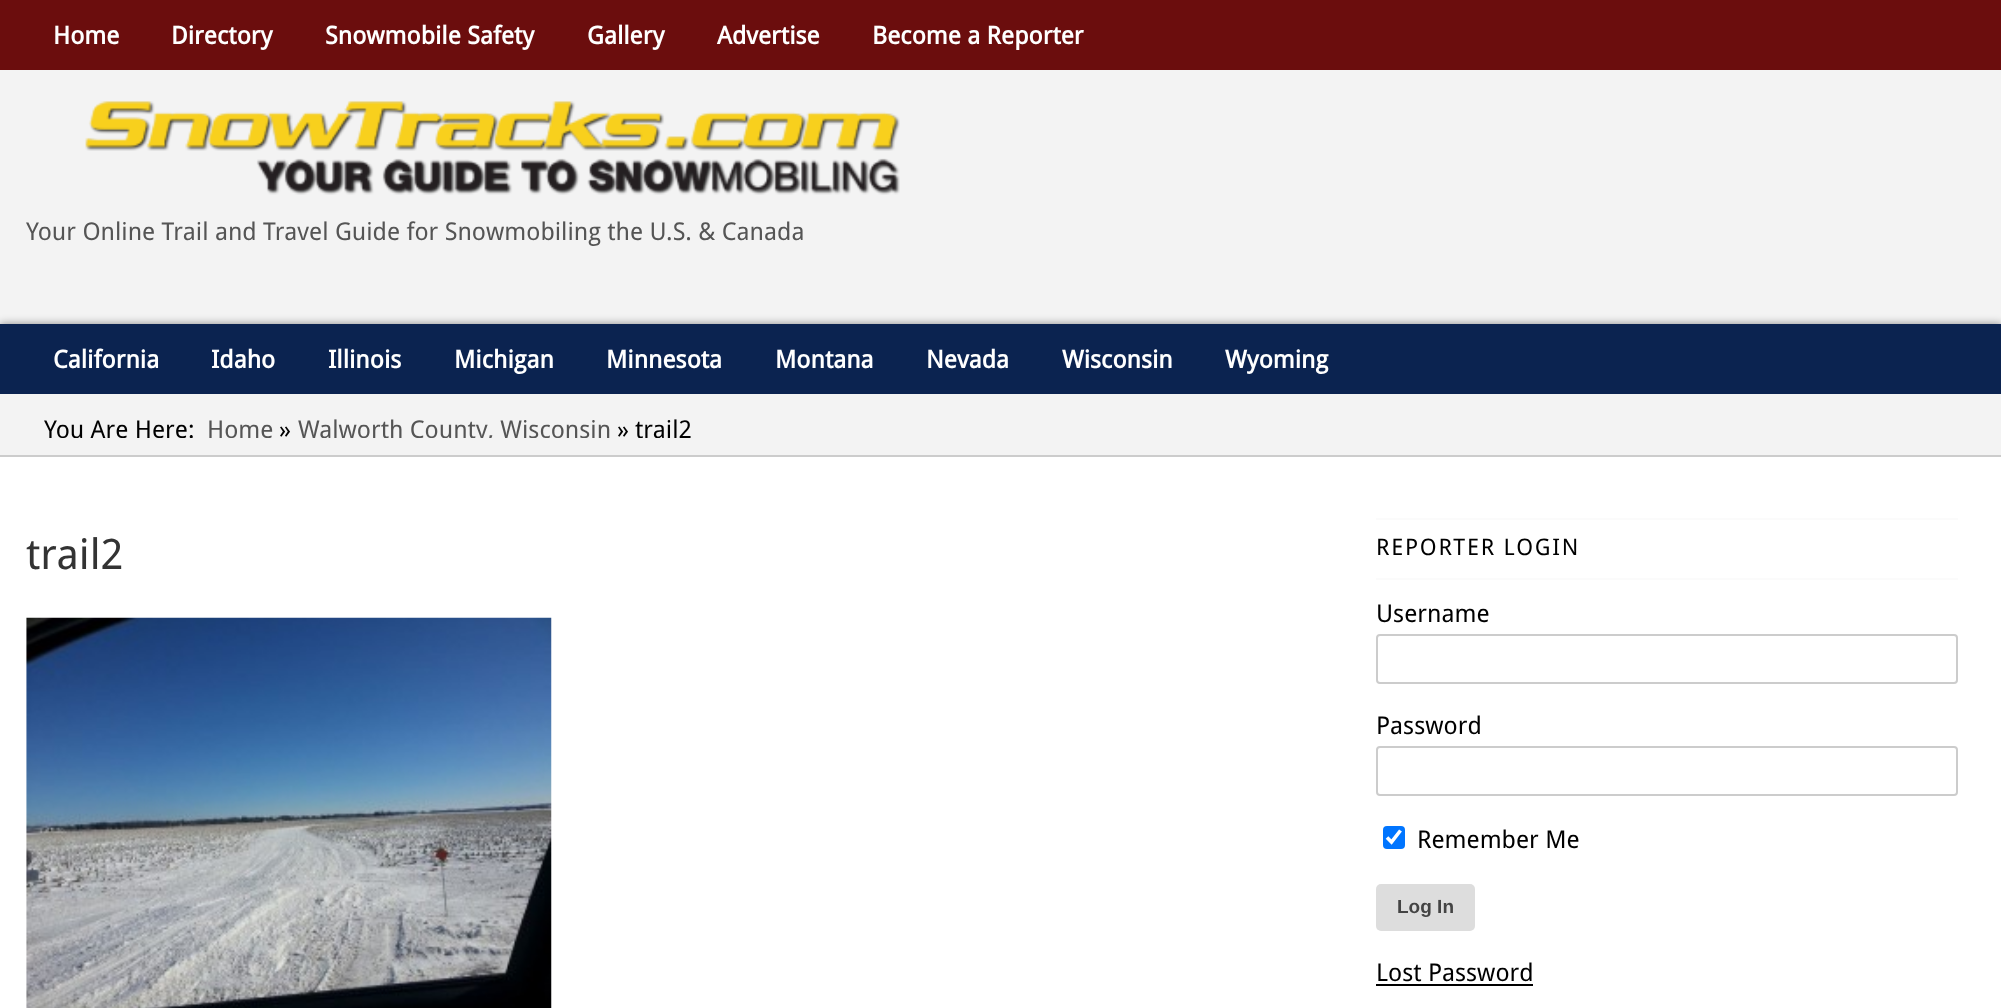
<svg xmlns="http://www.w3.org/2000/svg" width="2001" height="1008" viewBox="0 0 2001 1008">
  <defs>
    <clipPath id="clip1"><path d="M26 394h1950v44H26z"/></clipPath>
  </defs>
  <rect width="100%" height="100%" fill="#6b0d0d"/>
  <path d="M0 70h2001v254H0z" fill="#f3f3f3"/>
  <image x="85" y="101" width="815" height="94" href="img/1.png"/>
  <path d="M0 324h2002v70H0z" fill="#00000070" filter="blur(4.5px)"/>
  <path d="M0 324h2001v70H0z" fill="#0b2350"/>
  <path d="M0 394h2001v61H0z" fill="#f3f3f3"/>
  <path d="M0 455h2001v2H0z" fill="#ccc"/>
  <path d="M0 457h2001v551H0z" fill="#fff"/>
  <image x="26" y="617" width="526" height="391" href="img/2.png"/>
  <path d="M1376 518h582v2H1376z" fill="#fbfbfb"/>
  <path d="M1376 578h582v2H1376z" fill="#fbfbfb"/>
  <rect x="1377" y="635" width="580" height="48" rx="3" fill="none" stroke="#ccc" stroke-width="2"/>
  <rect x="1377" y="747" width="580" height="48" rx="3" fill="none" stroke="#ccc" stroke-width="2"/>
  <rect x="1383" y="826" width="22" height="23" rx="4" fill="#0075ff"/>
  <path d="M1387 837.5L1391.5 842L1400.5 830.5" fill="none" stroke="#fff" stroke-width="3.6"/>
  <rect x="1376" y="884" width="99" height="47" rx="5" fill="#ddd"/>
  <path d="M1376 984h157v2H1376z" fill="#000"/>
  <g font-family="Droid Sans" font-size="24.5" font-weight="bold" fill="#fff">
    <text x="53" y="44">Home</text>
    <text x="171" y="44">Directory</text>
    <text x="325" y="44">Snowmobile Safety</text>
    <text x="587" y="44">Gallery</text>
    <text x="717" y="44">Advertise</text>
    <text x="872" y="44">Become a Reporter</text>
  </g>
  <text x="26" y="240" font-family="Droid Sans" font-size="24.5" fill="#555">Your Online Trail and Travel Guide for Snowmobiling the U.S. &amp; Canada</text>
  <g font-family="Droid Sans" font-size="24.5" font-weight="bold" fill="#fff">
    <text x="53" y="368">California</text>
    <text x="211" y="368">Idaho</text>
    <text x="328" y="368">Illinois</text>
    <text x="454" y="368">Michigan</text>
    <text x="606" y="368">Minnesota</text>
    <text x="775" y="368">Montana</text>
    <text x="926" y="368">Nevada</text>
    <text x="1062" y="368">Wisconsin</text>
    <text x="1225" y="368">Wyoming</text>
  </g>
  <g clip-path="url(#clip1)">
    <text x="44" y="438" font-family="Droid Sans" font-size="24.5" fill="#000">You Are Here:</text>
    <text x="207" y="438" font-family="Droid Sans" font-size="24.5" fill="#555">Home</text>
  </g>
  <text x="279" y="438" font-family="Droid Sans" font-size="24.5" fill="#000">»</text>
  <g clip-path="url(#clip1)">
    <text x="298" y="438" font-family="Droid Sans" font-size="24.5" fill="#555">Walworth County, Wisconsin</text>
  </g>
  <text x="617" y="438" font-family="Droid Sans" font-size="24.5" fill="#000">»</text>
  <g clip-path="url(#clip1)">
    <text x="635" y="438" font-family="Droid Sans" font-size="24.5" fill="#000">trail2</text>
  </g>
  <text x="26" y="569" font-family="Droid Sans" font-size="42" fill="#333">trail2</text>
  <text x="1376" y="555" font-family="Droid Sans" font-size="22.75" letter-spacing="1.75" fill="#000">REPORTER LOGIN</text>
  <g font-family="Droid Sans" font-size="24.5" fill="#000">
    <text x="1376" y="622">Username</text>
    <text x="1376" y="734">Password</text>
    <text x="1417" y="848">Remember Me</text>
  </g>
  <text x="1397" y="913" font-family="Liberation Sans" font-size="19" font-weight="bold" fill="#444">Log In</text>
  <text x="1376" y="981" font-family="Droid Sans" font-size="24.5" fill="#000">Lost Password</text>
</svg>
